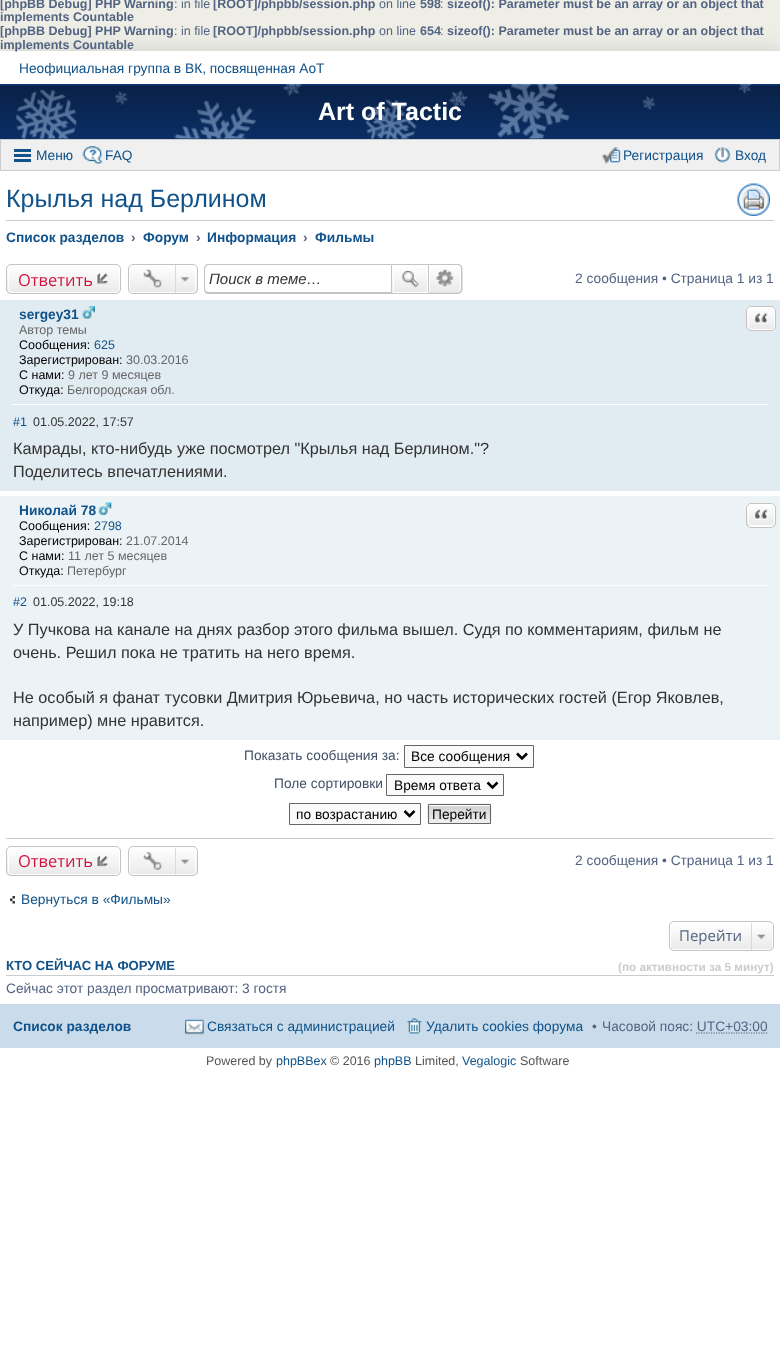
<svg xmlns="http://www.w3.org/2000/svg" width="780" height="1369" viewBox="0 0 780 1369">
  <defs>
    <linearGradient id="g1" gradientUnits="userSpaceOnUse" x1="390" y1="84" x2="390" y2="199"><stop offset="0" stop-color="#0a3e89"/><stop offset="0.02" stop-color="#092146"/><stop offset="1" stop-color="#0a3d87"/></linearGradient>
    <clipPath id="clip1"><rect x="6" y="264" width="115" height="30" rx="5"/></clipPath>
    <linearGradient id="g2" gradientUnits="userSpaceOnUse" x1="64" y1="265" x2="64" y2="293"><stop offset="0" stop-color="#fff"/><stop offset="1" stop-color="#e9e9e9"/></linearGradient>
    <clipPath id="clip2"><rect x="128" y="264" width="70" height="30" rx="5"/></clipPath>
    <linearGradient id="g3" gradientUnits="userSpaceOnUse" x1="163" y1="265" x2="163" y2="293"><stop offset="0" stop-color="#fff"/><stop offset="1" stop-color="#e9e9e9"/></linearGradient>
    <linearGradient id="g4" gradientUnits="userSpaceOnUse" x1="410" y1="265" x2="410" y2="293"><stop offset="0" stop-color="#fff"/><stop offset="1" stop-color="#e9e9e9"/></linearGradient>
    <linearGradient id="g5" gradientUnits="userSpaceOnUse" x1="445" y1="265" x2="445" y2="293"><stop offset="0" stop-color="#fff"/><stop offset="1" stop-color="#e9e9e9"/></linearGradient>
    <clipPath id="clip3"><rect x="746" y="306" width="30" height="25" rx="5"/></clipPath>
    <linearGradient id="g6" gradientUnits="userSpaceOnUse" x1="761" y1="308" x2="761" y2="330"><stop offset="0" stop-color="#fff"/><stop offset="1" stop-color="#e9e9e9"/></linearGradient>
    <clipPath id="clip4"><rect x="746" y="503" width="30" height="25" rx="5"/></clipPath>
    <linearGradient id="g7" gradientUnits="userSpaceOnUse" x1="761" y1="504" x2="761" y2="526"><stop offset="0" stop-color="#fff"/><stop offset="1" stop-color="#e9e9e9"/></linearGradient>
    <clipPath id="clip5"><rect x="6" y="846" width="115" height="30" rx="5"/></clipPath>
    <linearGradient id="g8" gradientUnits="userSpaceOnUse" x1="64" y1="848" x2="64" y2="875"><stop offset="0" stop-color="#fff"/><stop offset="1" stop-color="#e9e9e9"/></linearGradient>
    <clipPath id="clip6"><rect x="128" y="846" width="70" height="30" rx="5"/></clipPath>
    <linearGradient id="g9" gradientUnits="userSpaceOnUse" x1="163" y1="848" x2="163" y2="875"><stop offset="0" stop-color="#fff"/><stop offset="1" stop-color="#e9e9e9"/></linearGradient>
    <clipPath id="clip7"><rect x="669" y="921" width="105" height="30" rx="5"/></clipPath>
    <linearGradient id="g10" gradientUnits="userSpaceOnUse" x1="721" y1="923" x2="721" y2="950"><stop offset="0" stop-color="#fff"/><stop offset="1" stop-color="#e9e9e9"/></linearGradient>
  </defs>
  <rect width="100%" height="100%" fill="#eeeee7"/>
  <path d="M0 51h780v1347H0z" fill="#ccc" filter="blur(9.5px)"/>
  <path d="M0 51h780v1318H0z" fill="#fff"/>
  <path d="M0 84h780v55H0z" fill="url(#g1)"/>
  <image x="16" y="83" width="736" height="56" href="img/1.png"/>
  <path d="M0.5 139.5h779v31H0.5z" fill="#f0f0f0" stroke="#ccc"/>
  <path d="M14 149h17v3H14z" fill="#105289"/>
  <path d="M14 154h17v3H14z" fill="#105289"/>
  <path d="M14 159h17v3H14z" fill="#105289"/>
  <image x="82" y="146" width="21" height="18" href="img/2.png"/>
  <image x="602" y="147" width="19" height="17" href="img/3.png"/>
  <image x="714" y="147" width="17" height="16" href="img/4.png"/>
  <image x="737" y="183" width="33" height="33" href="img/5.png"/>
  <path d="M6 220h768v1H6z" fill="#ccc"/>
  <g clip-path="url(#clip1)">
    <path d="M6 265h115v28H6z" fill="url(#g2)"/>
  </g>
  <rect x="8.5" y="265.5" width="111" height="27" rx="3.5" fill="none" stroke="#fff"/>
  <rect x="6.5" y="264.5" width="114" height="29" rx="4.5" fill="none" stroke="#c7c3bf"/>
  <image x="97" y="273" width="11" height="11" href="img/6.png"/>
  <g clip-path="url(#clip2)">
    <path d="M128 265h70v28H128z" fill="url(#g3)"/>
  </g>
  <rect x="129.5" y="265.5" width="66" height="27" rx="3.5" fill="none" stroke="#fff"/>
  <rect x="128.5" y="264.5" width="69" height="29" rx="4.5" fill="none" stroke="#c7c3bf"/>
  <image x="143" y="269" width="19" height="19" href="img/7.png"/>
  <image x="181" y="277" width="8" height="5" href="img/8.png"/>
  <path d="M175 265h1v28H175z" fill="#dadada"/>
  <path d="M209 264H391V294H209C206 294 204 292 204 289V269C204 266 206 264 209 264ZM209 265H391V292H209C207 292 205 291 205 289V269C205 267 207 265 209 265Z" fill="#c7c3bf" fill-rule="evenodd"/>
  <path d="M392 268h35v25H392z" fill="url(#g4)"/>
  <path d="M393.5 265.5h34v27H393.5z" fill="none" stroke="#fff"/>
  <path d="M391.5 264.5h37v29H391.5z" fill="none" stroke="#c7c3bf"/>
  <image x="402" y="271" width="17" height="17" href="img/9.png"/>
  <path d="M429.5 265.5H457C459 265.5 460.5 267 460.5 269V289C460.5 291 459 292.5 457 292.5H429.5Z" fill="url(#g5)" stroke="#fff"/>
  <path d="M429 264H457.5C460.5 264 462.5 266 462.5 269V289C462.5 291.5 460.5 294 457.5 294H429ZM429 265H457.5C459.5 265 461 266.5 461 269V289C461 291 459.5 292.5 457.5 292.5H429Z" fill="#c7c3bf" fill-rule="evenodd"/>
  <image x="436" y="269" width="18" height="18" href="img/10.png"/>
  <path d="M0 300h780v191H0z" fill="#e1ebf2"/>
  <path d="M13 404h755v1H13z" fill="#fff"/>
  <image x="82" y="306" width="13" height="13" href="img/11.png"/>
  <rect x="746" y="306" width="30" height="25" rx="5" fill="#fff"/>
  <g clip-path="url(#clip3)">
    <path d="M746 308h30v22H746z" fill="url(#g6)"/>
  </g>
  <rect x="748.5" y="308.5" width="26" height="21" rx="3.5" fill="none" stroke="#fff"/>
  <rect x="746.5" y="306.5" width="29" height="24" rx="4.5" fill="none" stroke="#c7c3bf"/>
  <image x="755" y="313" width="13" height="11" href="img/12.png"/>
  <path d="M0 496h780v244H0z" fill="#ecf3f7"/>
  <path d="M13 585h755v1H13z" fill="#fff"/>
  <image x="98" y="502" width="14" height="13" href="img/13.png"/>
  <rect x="746" y="503" width="30" height="25" rx="5" fill="#fff"/>
  <g clip-path="url(#clip4)">
    <path d="M746 504h30v22H746z" fill="url(#g7)"/>
  </g>
  <rect x="748.5" y="504.5" width="26" height="21" rx="3.5" fill="none" stroke="#fff"/>
  <rect x="746.5" y="503.5" width="29" height="24" rx="4.5" fill="none" stroke="#c7c3bf"/>
  <image x="755" y="509" width="13" height="11" href="img/14.png"/>
  <path d="M404.5 745.5h129v22H404.5z" fill="#fafafa" stroke="#666"/>
  <path d="M517 753.5L522 758.5L527 753.5" fill="none" stroke="#000" stroke-width="2.5"/>
  <path d="M386.5 774.5h117v21H386.5z" fill="#fafafa" stroke="#666"/>
  <path d="M487.5 782.5L492.5 787.5L497.5 782.5" fill="none" stroke="#000" stroke-width="2.5"/>
  <path d="M289.5 803.5h131v21H289.5z" fill="#fafafa" stroke="#666"/>
  <path d="M404.5 811L409.5 816L414.5 811" fill="none" stroke="#000" stroke-width="2.5"/>
  <image x="427" y="803" width="65" height="21" href="img/15.png"/>
  <path d="M428.5 804.5h62v19H428.5z" fill="none" stroke="#666"/>
  <path d="M6 838h768v1H6z" fill="#ccc"/>
  <g clip-path="url(#clip5)">
    <path d="M6 848h115v27H6z" fill="url(#g8)"/>
  </g>
  <rect x="8.5" y="848.5" width="111" height="26" rx="3.5" fill="none" stroke="#fff"/>
  <rect x="6.5" y="846.5" width="114" height="29" rx="4.5" fill="none" stroke="#c7c3bf"/>
  <image x="97" y="855" width="11" height="12" href="img/16.png"/>
  <g clip-path="url(#clip6)">
    <path d="M128 848h70v27H128z" fill="url(#g9)"/>
  </g>
  <rect x="129.5" y="848.5" width="66" height="26" rx="3.5" fill="none" stroke="#fff"/>
  <rect x="128.5" y="846.5" width="69" height="29" rx="4.5" fill="none" stroke="#c7c3bf"/>
  <image x="143" y="852" width="19" height="19" href="img/17.png"/>
  <image x="181" y="859" width="9" height="6" href="img/18.png"/>
  <path d="M175 848h1v27H175z" fill="#dadada"/>
  <image x="10" y="896" width="5" height="8" href="img/19.png"/>
  <g clip-path="url(#clip7)">
    <path d="M669 923h105v27H669z" fill="url(#g10)"/>
  </g>
  <rect x="670.5" y="923.5" width="102" height="26" rx="3.5" fill="none" stroke="#fff"/>
  <rect x="669.5" y="921.5" width="104" height="29" rx="4.5" fill="none" stroke="#c7c3bf"/>
  <image x="757" y="934" width="9" height="6" href="img/20.png"/>
  <path d="M751 923h1v27H751z" fill="#dadada"/>
  <path d="M6 975h768v1H6z" fill="#ccc"/>
  <path d="M0 1004h780v44H0z" fill="#cadceb"/>
  <image x="185" y="1019" width="19" height="16" href="img/21.png"/>
  <image x="407" y="1018" width="15" height="16" href="img/22.png"/>
  <path d="M696 1033H767.5" fill="none" stroke="#536482" stroke-width="1.2" stroke-dasharray="1.25 1.25"/>
  <text x="0" y="8" font-family="Liberation Sans" font-size="12.5" font-weight="bold" fill="#536482">[phpBB Debug] PHP Warning</text>
  <text x="174" y="8" font-family="Liberation Sans" font-size="12.5" fill="#536482">: in file</text>
  <text x="213" y="8" font-family="Liberation Sans" font-size="12.5" font-weight="bold" fill="#536482">[ROOT]/phpbb/session.php</text>
  <text x="379" y="8" font-family="Liberation Sans" font-size="12.5" fill="#536482">on line</text>
  <text x="420" y="8" font-family="Liberation Sans" font-size="12.5" font-weight="bold" fill="#536482">598</text>
  <text x="440" y="8" font-family="Liberation Sans" font-size="12.5" fill="#536482">:</text>
  <g font-family="Liberation Sans" font-size="12.5" font-weight="bold" fill="#536482">
    <text x="447" y="8">sizeof(): Parameter must be an array or an object that</text>
    <text x="0" y="21">implements Countable</text>
    <text x="0" y="35">[phpBB Debug] PHP Warning</text>
  </g>
  <text x="174" y="35" font-family="Liberation Sans" font-size="12.5" fill="#536482">: in file</text>
  <text x="213" y="35" font-family="Liberation Sans" font-size="12.5" font-weight="bold" fill="#536482">[ROOT]/phpbb/session.php</text>
  <text x="379" y="35" font-family="Liberation Sans" font-size="12.5" fill="#536482">on line</text>
  <text x="420" y="35" font-family="Liberation Sans" font-size="12.5" font-weight="bold" fill="#536482">654</text>
  <text x="440" y="35" font-family="Liberation Sans" font-size="12.5" fill="#536482">:</text>
  <g font-family="Liberation Sans" font-size="12.5" font-weight="bold" fill="#536482">
    <text x="447" y="35">sizeof(): Parameter must be an array or an object that</text>
    <text x="0" y="49">implements Countable</text>
  </g>
  <text x="19" y="73" font-family="Liberation Sans" font-size="13.75" fill="#105289">Неофициальная группа в ВК, посвященная АоТ</text>
  <text x="318" y="120" font-family="Liberation Sans" font-size="25" font-weight="bold" fill="#fff">Art of Tactic</text>
  <g font-family="Liberation Sans" font-size="13.75" fill="#105289">
    <text x="36" y="160">Меню</text>
    <text x="105" y="160">FAQ</text>
    <text x="623" y="160">Регистрация</text>
    <text x="735" y="160">Вход</text>
  </g>
  <text x="6" y="207" font-family="Liberation Sans" font-size="25" fill="#105289">Крылья над Берлином</text>
  <text x="6" y="242" font-family="Liberation Sans" font-size="13.75" font-weight="bold" fill="#105289">Список разделов</text>
  <text x="131" y="242" font-family="Liberation Sans" font-size="13.75" font-weight="bold" fill="#536482">›</text>
  <text x="143" y="242" font-family="Liberation Sans" font-size="13.75" font-weight="bold" fill="#105289">Форум</text>
  <text x="196" y="242" font-family="Liberation Sans" font-size="13.75" font-weight="bold" fill="#536482">›</text>
  <text x="207" y="242" font-family="Liberation Sans" font-size="13.75" font-weight="bold" fill="#105289">Информация</text>
  <text x="303" y="242" font-family="Liberation Sans" font-size="13.75" font-weight="bold" fill="#536482">›</text>
  <text x="315" y="242" font-family="Liberation Sans" font-size="13.75" font-weight="bold" fill="#105289">Фильмы</text>
  <text x="18" y="286" font-family="Open Sans" font-size="16.5" fill="#d31141">Ответить</text>
  <text x="209" y="284" font-family="Liberation Sans" font-size="15" font-style="italic" fill="#333">Поиск в теме…</text>
  <text x="575" y="283" font-family="Liberation Sans" font-size="13.75" fill="#536482">2 сообщения • Страница 1 из 1</text>
  <text x="19" y="319" font-family="Liberation Sans" font-size="13.75" font-weight="bold" fill="#105289">sergey31</text>
  <text x="19" y="334" font-family="Liberation Sans" font-size="12.5" fill="#666">Автор темы</text>
  <text x="19" y="349" font-family="Liberation Sans" font-size="12.5" fill="#000">Сообщения:</text>
  <text x="94" y="349" font-family="Liberation Sans" font-size="12.5" fill="#105289">625</text>
  <text x="19" y="364" font-family="Liberation Sans" font-size="12.5" fill="#000">Зарегистрирован:</text>
  <text x="126" y="364" font-family="Liberation Sans" font-size="12.5" fill="#666">30.03.2016</text>
  <text x="19" y="379" font-family="Liberation Sans" font-size="12.5" fill="#000">С нами:</text>
  <text x="68" y="379" font-family="Liberation Sans" font-size="12.5" fill="#666">9 лет 9 месяцев</text>
  <text x="19" y="394" font-family="Liberation Sans" font-size="12.5" fill="#000">Откуда:</text>
  <text x="67" y="394" font-family="Liberation Sans" font-size="12.5" fill="#666">Белгородская обл.</text>
  <text x="13" y="426" font-family="Liberation Sans" font-size="12.5" fill="#105289">#1</text>
  <text x="33" y="426" font-family="Liberation Sans" font-size="12.5" fill="#333">01.05.2022, 17:57</text>
  <g font-family="Liberation Sans" font-size="16.25" fill="#333">
    <text x="13" y="454">Камрады, кто-нибудь уже посмотрел "Крылья над Берлином."?</text>
    <text x="13" y="477">Поделитесь впечатлениями.</text>
  </g>
  <text x="19" y="515" font-family="Liberation Sans" font-size="13.75" font-weight="bold" fill="#105289">Николай 78</text>
  <text x="19" y="530" font-family="Liberation Sans" font-size="12.5" fill="#000">Сообщения:</text>
  <text x="94" y="530" font-family="Liberation Sans" font-size="12.5" fill="#105289">2798</text>
  <text x="19" y="545" font-family="Liberation Sans" font-size="12.5" fill="#000">Зарегистрирован:</text>
  <text x="126" y="545" font-family="Liberation Sans" font-size="12.5" fill="#666">21.07.2014</text>
  <text x="19" y="560" font-family="Liberation Sans" font-size="12.5" fill="#000">С нами:</text>
  <text x="68" y="560" font-family="Liberation Sans" font-size="12.5" fill="#666">11 лет 5 месяцев</text>
  <text x="19" y="575" font-family="Liberation Sans" font-size="12.5" fill="#000">Откуда:</text>
  <text x="67" y="575" font-family="Liberation Sans" font-size="12.5" fill="#666">Петербург</text>
  <text x="13" y="606" font-family="Liberation Sans" font-size="12.5" fill="#105289">#2</text>
  <text x="33" y="606" font-family="Liberation Sans" font-size="12.5" fill="#333">01.05.2022, 19:18</text>
  <g font-family="Liberation Sans" font-size="16.25" fill="#333">
    <text x="13" y="635">У Пучкова на канале на днях разбор этого фильма вышел. Судя по комментариям, фильм не</text>
    <text x="13" y="658">очень. Решил пока не тратить на него время.</text>
    <text x="13" y="703">Не особый я фанат тусовки Дмитрия Юрьевича, но часть исторических гостей (Егор Яковлев,</text>
    <text x="13" y="726">например) мне нравится.</text>
  </g>
  <text x="244" y="760" font-family="Liberation Sans" font-size="13.75" fill="#425067">Показать сообщения за:</text>
  <text x="411" y="761" font-family="Liberation Sans" font-size="13.75" fill="#000">Все сообщения</text>
  <text x="274" y="788" font-family="Liberation Sans" font-size="13.75" fill="#425067">Поле сортировки</text>
  <g font-family="Liberation Sans" font-size="13.75" fill="#000">
    <text x="394" y="790">Время ответа</text>
    <text x="296" y="819">по возрастанию</text>
    <text x="432" y="819">Перейти</text>
  </g>
  <text x="18" y="867" font-family="Open Sans" font-size="16.5" fill="#d31141">Ответить</text>
  <text x="575" y="865" font-family="Liberation Sans" font-size="13.75" fill="#536482">2 сообщения • Страница 1 из 1</text>
  <text x="21" y="904" font-family="Liberation Sans" font-size="13.75" fill="#105289">Вернуться в «Фильмы»</text>
  <text x="679" y="941" font-family="Open Sans" font-size="15" fill="#536482">Перейти</text>
  <text x="6" y="970" font-family="Liberation Sans" font-size="13.1" font-weight="bold" fill="#105289">КТО СЕЙЧАС НА ФОРУМЕ</text>
  <text x="618" y="971" font-family="Liberation Sans" font-size="11.75" font-weight="bold" fill="#ccc">(по активности за 5 минут)</text>
  <text x="6" y="993" font-family="Liberation Sans" font-size="13.75" fill="#536482">Сейчас этот раздел просматривают: 3 гостя</text>
  <text x="13" y="1031" font-family="Liberation Sans" font-size="13.75" font-weight="bold" fill="#105289">Список разделов</text>
  <g font-family="Liberation Sans" font-size="13.75" fill="#105289">
    <text x="207" y="1031">Связаться с администрацией</text>
    <text x="426" y="1031">Удалить cookies форума</text>
  </g>
  <g font-family="Liberation Sans" font-size="13.75" fill="#536482">
    <text x="592" y="1031">•</text>
    <text x="602" y="1031">Часовой пояс: UTC+03:00</text>
  </g>
  <text x="206" y="1065" font-family="Liberation Sans" font-size="12.5" fill="#555">Powered by</text>
  <text x="276" y="1065" font-family="Liberation Sans" font-size="12.5" fill="#105289">phpBBex</text>
  <text x="330" y="1065" font-family="Liberation Sans" font-size="12.5" fill="#555">© 2016</text>
  <text x="374" y="1065" font-family="Liberation Sans" font-size="12.5" fill="#105289">phpBB</text>
  <text x="415" y="1065" font-family="Liberation Sans" font-size="12.5" fill="#555">Limited,</text>
  <text x="462" y="1065" font-family="Liberation Sans" font-size="12.5" fill="#105289">Vegalogic</text>
  <text x="520" y="1065" font-family="Liberation Sans" font-size="12.5" fill="#555">Software</text>
</svg>
